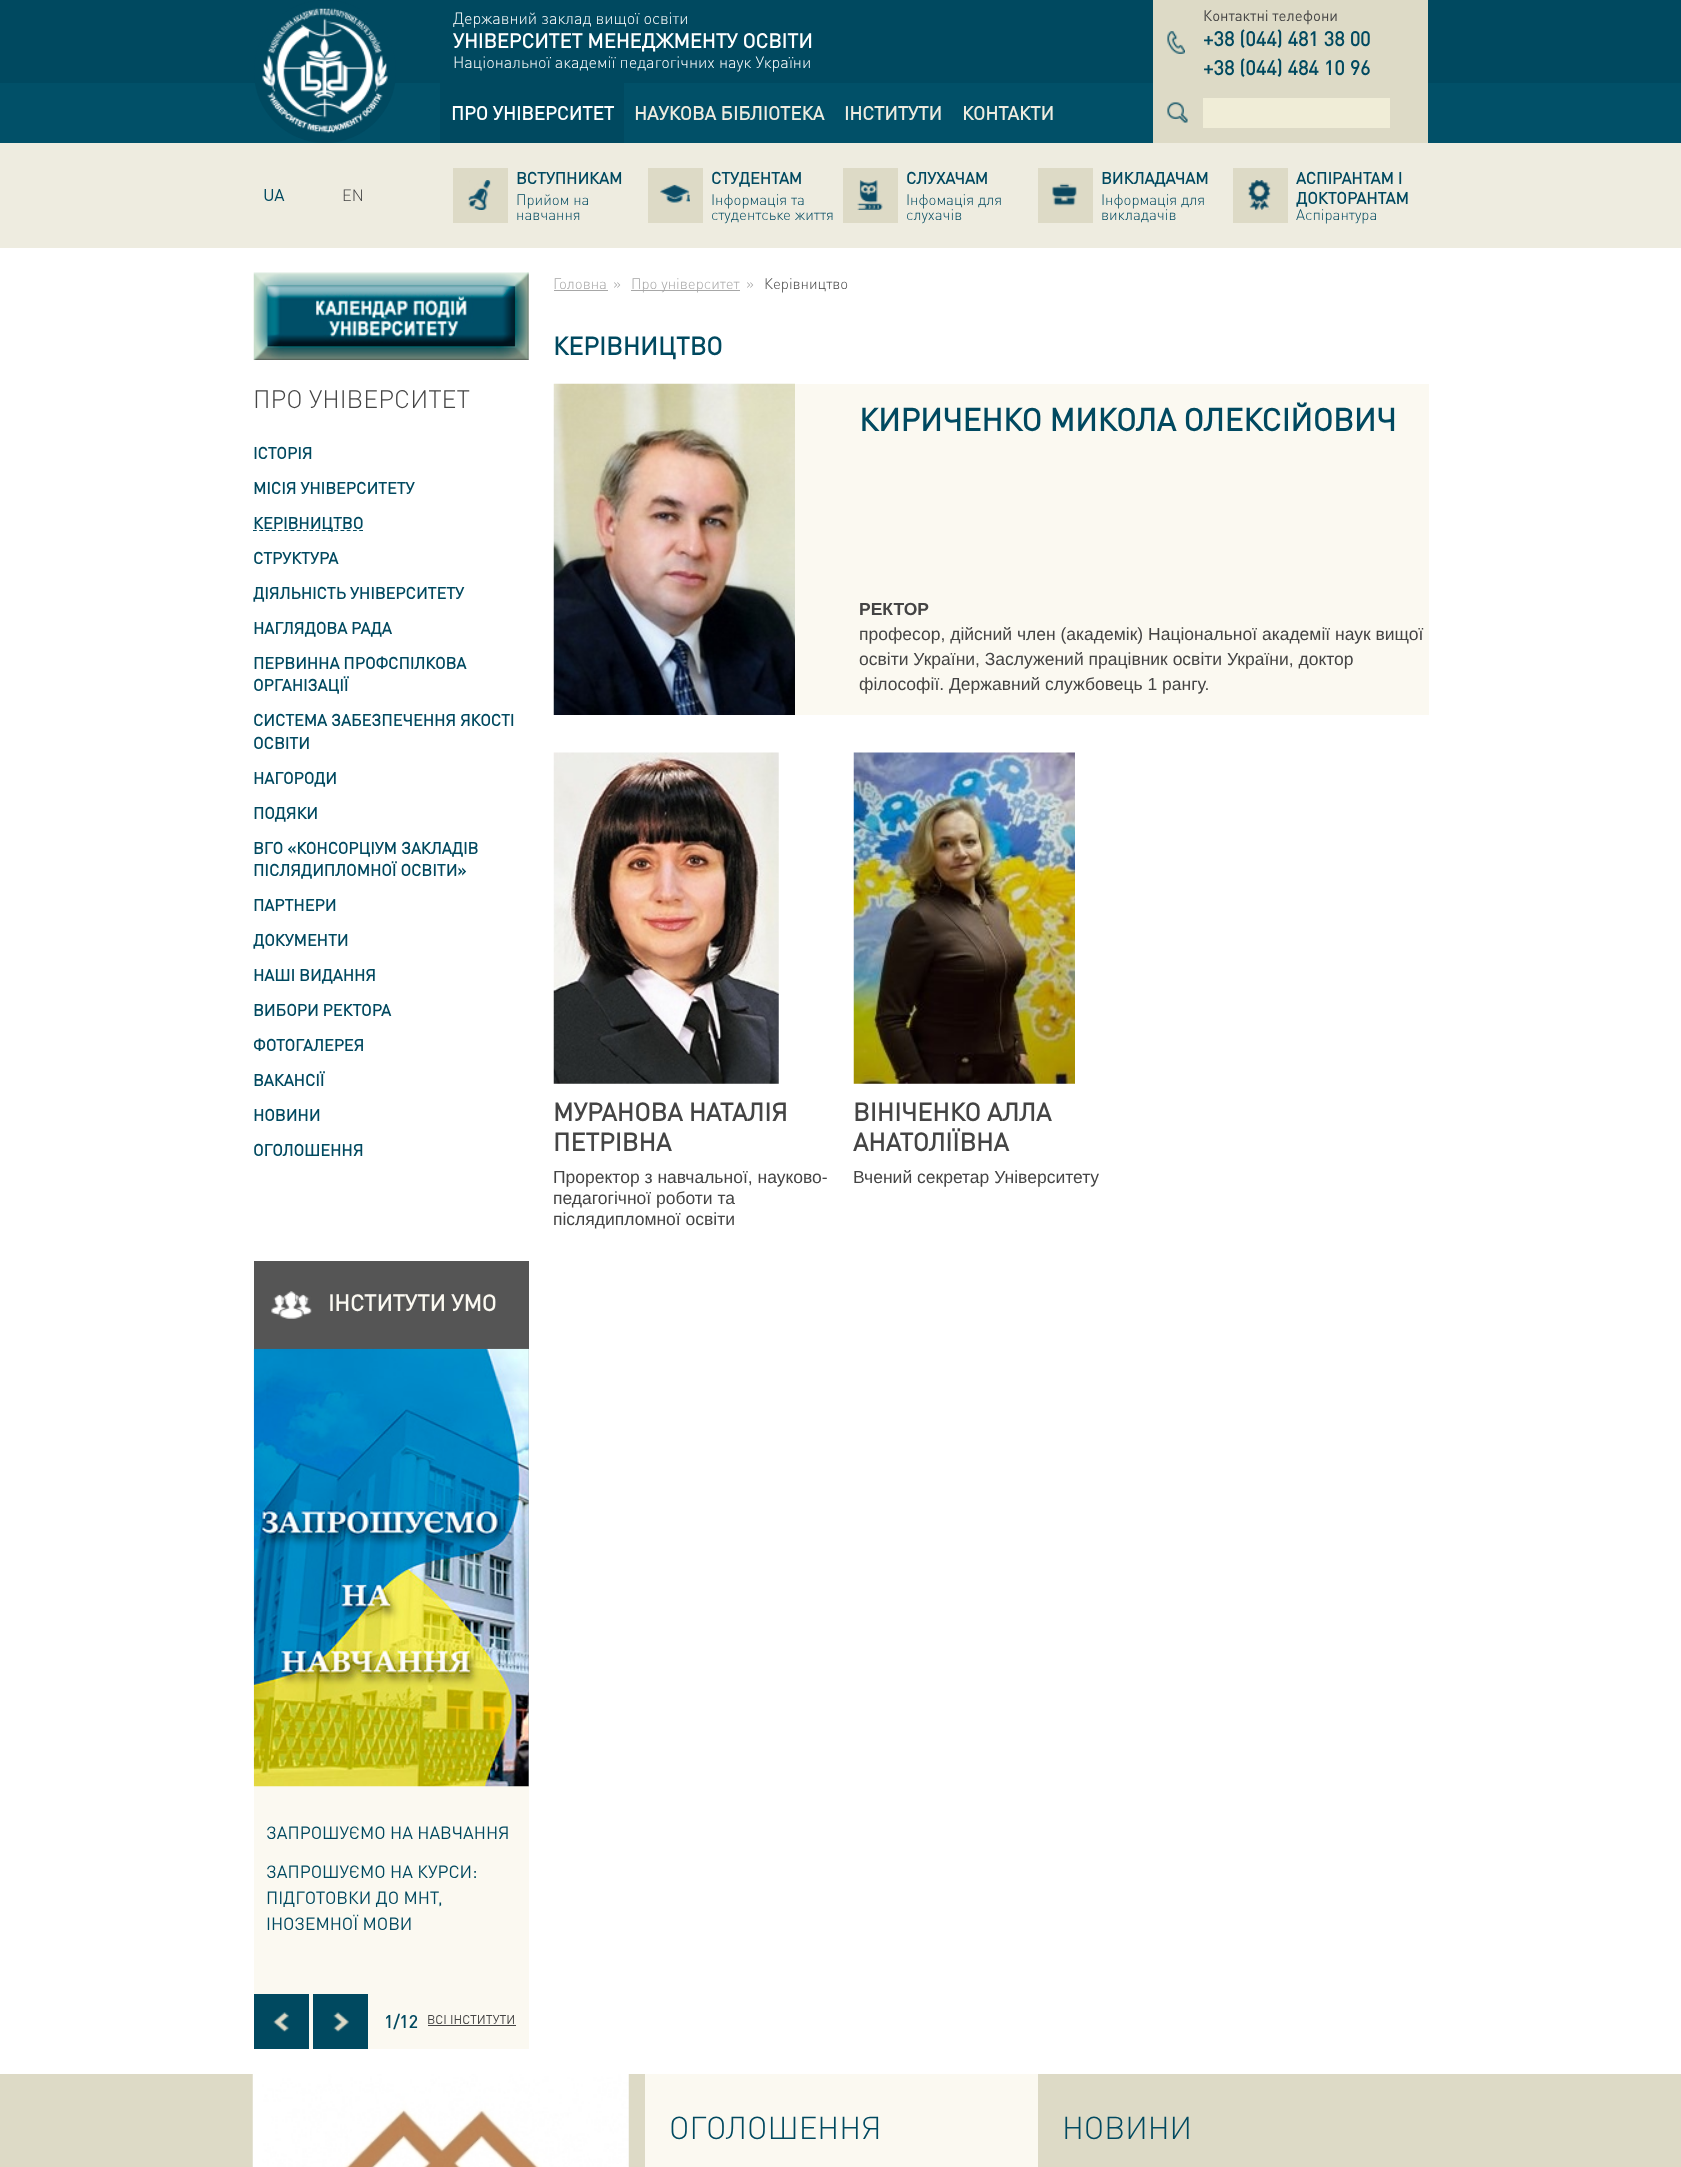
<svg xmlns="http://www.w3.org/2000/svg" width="1681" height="2167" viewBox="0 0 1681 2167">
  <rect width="100%" height="100%" fill="#fff"/>
  <path d="M0 0h1681v83H0z" fill="#004960"/>
  <path d="M0 83h1681v60H0z" fill="#015068"/>
  <rect x="254" width="142" height="143" rx="71" fill="#004960"/>
  <image x="262" y="8" width="126" height="125" href="img/1.png"/>
  <path d="M440 83h184v60H440z" fill="#004960"/>
  <path d="M1153 0h275v143H1153z" fill="#dddac6"/>
  <image x="1167" y="31" width="18" height="23" href="img/2.png"/>
  <image x="1167" y="102" width="21" height="21" href="img/3.png"/>
  <path d="M1203 98h187v30H1203z" fill="#f0edd7"/>
  <path d="M0 143h1681v105H0z" fill="#eeece0"/>
  <path d="M453 168h55v55H453z" fill="#dddac6"/>
  <image x="468" y="180" width="23" height="30" href="img/4.png"/>
  <path d="M648 168h55v55H648z" fill="#dddac6"/>
  <image x="660" y="184" width="30" height="19" href="img/5.png"/>
  <path d="M843 168h55v55H843z" fill="#dddac6"/>
  <image x="857" y="180" width="26" height="30" href="img/6.png"/>
  <path d="M1038 168h55v55H1038z" fill="#dddac6"/>
  <image x="1052" y="183" width="25" height="23" href="img/7.png"/>
  <path d="M1233 168h55v55H1233z" fill="#dddac6"/>
  <image x="1248" y="180" width="23" height="30" href="img/8.png"/>
  <image x="253" y="272" width="276" height="88" href="img/9.png"/>
  <path d="M253 530.5H363.5" fill="none" stroke="#004960" stroke-width="1.2" stroke-dasharray="3.75 2.5"/>
  <path d="M254 1349h275v700H254z" fill="#fbf9f1"/>
  <path d="M254 1261h275v88H254z" fill="#555"/>
  <image x="271" y="1291" width="41" height="28" href="img/10.png"/>
  <image x="253" y="1348" width="276" height="439" href="img/12.png"/>
  <image x="528" y="1349" width="1" height="438" href="img/11.png"/>
  <path d="M254 1994h55v55H254z" fill="#004960"/>
  <image x="273" y="2012" width="16" height="20" href="img/13.png"/>
  <path d="M313 1994h55v55H313z" fill="#004960"/>
  <image x="333" y="2012" width="16" height="20" href="img/14.png"/>
  <path d="M428 2025h88v1H428z" fill="#444"/>
  <path d="M554 290h54v1H554z" fill="#a7a7a7"/>
  <path d="M631 290h109v1H631z" fill="#a7a7a7"/>
  <path d="M795 384h634v331H795z" fill="#fbf9f1"/>
  <image x="553" y="383" width="242" height="332" href="img/15.png"/>
  <image x="553" y="752" width="226" height="332" href="img/16.png"/>
  <image x="853" y="752" width="222" height="332" href="img/17.png"/>
  <path d="M0 2074h1681v93H0z" fill="#dddac6"/>
  <image x="252" y="2074" width="377" height="93" href="img/18.png"/>
  <path d="M645 2074h393v93H645z" fill="#fbf9f1"/>
  <text x="453" y="24" font-family="DIN" font-size="16.25" font-weight="300" fill="#fff">Державний заклад вищої освіти</text>
  <text x="453" y="48" font-family="DIN" font-size="20" font-weight="bold" fill="#fff">УНІВЕРСИТЕТ МЕНЕДЖМЕНТУ ОСВІТИ</text>
  <text x="453" y="68" font-family="DIN" font-size="16.25" font-weight="300" fill="#fff">Національної академії педагогічних наук України</text>
  <text x="451" y="120" font-family="DIN" font-size="18.75" font-weight="bold" fill="#fff">ПРО УНІВЕРСИТЕТ</text>
  <g font-family="DIN" font-size="18.75" font-weight="bold" fill="#eeece0">
    <text x="634" y="120">НАУКОВА БІБЛІОТЕКА</text>
    <text x="844" y="120">ІНСТИТУТИ</text>
    <text x="962" y="120">КОНТАКТИ</text>
  </g>
  <text x="1203" y="21" font-family="DIN" font-size="15" fill="#444">Контактні телефони</text>
  <g font-family="DIN" font-size="20" font-weight="bold" fill="#004960">
    <text x="1203" y="46">+38 (044) 481 38 00</text>
    <text x="1203" y="75">+38 (044) 484 10 96</text>
  </g>
  <text x="263" y="201" font-family="'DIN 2'" font-size="16.25" font-weight="bold" fill="#004960">UA</text>
  <text x="342" y="201" font-family="DIN" font-size="16.25" font-weight="300" fill="#444">EN</text>
  <text x="516" y="184" font-family="DIN" font-size="16.25" font-weight="bold" fill="#004960">ВСТУПНИКАМ</text>
  <g font-family="DIN" font-size="15" font-weight="300" fill="#004960">
    <text x="516" y="205">Прийом на</text>
    <text x="516" y="220">навчання</text>
  </g>
  <text x="711" y="184" font-family="DIN" font-size="16.25" font-weight="bold" fill="#004960">СТУДЕНТАМ</text>
  <g font-family="DIN" font-size="15" font-weight="300" fill="#004960">
    <text x="711" y="205">Інформація та</text>
    <text x="711" y="220">студентське життя</text>
  </g>
  <text x="906" y="184" font-family="DIN" font-size="16.25" font-weight="bold" fill="#004960">СЛУХАЧАМ</text>
  <g font-family="DIN" font-size="15" font-weight="300" fill="#004960">
    <text x="906" y="205">Інфомація для</text>
    <text x="906" y="220">слухачів</text>
  </g>
  <text x="1101" y="184" font-family="DIN" font-size="16.25" font-weight="bold" fill="#004960">ВИКЛАДАЧАМ</text>
  <g font-family="DIN" font-size="15" font-weight="300" fill="#004960">
    <text x="1101" y="205">Інформація для</text>
    <text x="1101" y="220">викладачів</text>
  </g>
  <g font-family="DIN" font-size="16.25" font-weight="bold" fill="#004960">
    <text x="1296" y="184">АСПІРАНТАМ І</text>
    <text x="1296" y="204">ДОКТОРАНТАМ</text>
  </g>
  <text x="1296" y="220" font-family="DIN" font-size="15" font-weight="300" fill="#004960">Аспірантура</text>
  <text x="253" y="408" font-family="DIN" font-size="25" font-weight="300" fill="#444">ПРО УНІВЕРСИТЕТ</text>
  <g font-family="DIN" font-size="16.25" font-weight="bold" fill="#004960">
    <text x="253" y="459">ІСТОРІЯ</text>
    <text x="253" y="494">МІСІЯ УНІВЕРСИТЕТУ</text>
    <text x="253" y="529">КЕРІВНИЦТВО</text>
    <text x="253" y="564">СТРУКТУРА</text>
    <text x="253" y="599">ДІЯЛЬНІСТЬ УНІВЕРСИТЕТУ</text>
    <text x="253" y="634">НАГЛЯДОВА РАДА</text>
    <text x="253" y="669">ПЕРВИННА ПРОФСПІЛКОВА</text>
    <text x="253" y="691">ОРГАНІЗАЦІЇ</text>
    <text x="253" y="726">СИСТЕМА ЗАБЕЗПЕЧЕННЯ ЯКОСТІ</text>
    <text x="253" y="749">ОСВІТИ</text>
    <text x="253" y="784">НАГОРОДИ</text>
    <text x="253" y="819">ПОДЯКИ</text>
    <text x="253" y="854">ВГО «КОНСОРЦІУМ ЗАКЛАДІВ</text>
    <text x="253" y="876">ПІСЛЯДИПЛОМНОЇ ОСВІТИ»</text>
    <text x="253" y="911">ПАРТНЕРИ</text>
    <text x="253" y="946">ДОКУМЕНТИ</text>
    <text x="253" y="981">НАШІ ВИДАННЯ</text>
    <text x="253" y="1016">ВИБОРИ РЕКТОРА</text>
    <text x="253" y="1051">ФОТОГАЛЕРЕЯ</text>
    <text x="253" y="1086">ВАКАНСІЇ</text>
    <text x="253" y="1121">НОВИНИ</text>
    <text x="253" y="1156">ОГОЛОШЕННЯ</text>
  </g>
  <text x="328" y="1311" font-family="DIN" font-size="22.5" font-weight="bold" fill="#fbf9f1">ІНСТИТУТИ УМО</text>
  <g font-family="DIN" font-size="17.5" fill="#004960">
    <text x="266" y="1839">ЗАПРОШУЄМО НА НАВЧАННЯ</text>
    <text x="266" y="1878">ЗАПРОШУЄМО НА КУРСИ:</text>
    <text x="266" y="1904">ПІДГОТОВКИ ДО МНТ,</text>
    <text x="266" y="1930">ІНОЗЕМНОЇ МОВИ</text>
  </g>
  <text x="384" y="2028" font-family="DIN" font-size="17.5" font-weight="bold" fill="#004960">1/12</text>
  <text x="427" y="2024" font-family="DIN" font-size="12.5" fill="#444">ВСІ ІНСТИТУТИ</text>
  <g font-family="DIN" font-size="15" font-weight="300" fill="#a7a7a7">
    <text x="553" y="289">Головна</text>
    <text x="613" y="289">»</text>
    <text x="631" y="289">Про університет</text>
    <text x="746" y="289">»</text>
  </g>
  <text x="764" y="289" font-family="DIN" font-size="15" font-weight="300" fill="#444">Керівництво</text>
  <text x="553" y="355" font-family="DIN" font-size="25" font-weight="bold" fill="#004960">КЕРІВНИЦТВО</text>
  <text x="859" y="431" font-family="DIN" font-size="31.25" font-weight="bold" fill="#004960">КИРИЧЕНКО МИКОЛА ОЛЕКСІЙОВИЧ</text>
  <text x="859" y="615" font-family="Liberation Sans" font-size="17.5" font-weight="bold" fill="#444">РЕКТОР</text>
  <g font-family="Liberation Sans" font-size="17.5" fill="#444">
    <text x="859" y="640">професор, дійсний член (академік) Національної академії наук вищої</text>
    <text x="859" y="665">освіти України, Заслужений працівник освіти України, доктор</text>
    <text x="859" y="690">філософії. Державний службовець 1 рангу.</text>
  </g>
  <g font-family="DIN" font-size="25" font-weight="bold" fill="#444">
    <text x="553" y="1121">МУРАНОВА НАТАЛІЯ</text>
    <text x="553" y="1151">ПЕТРІВНА</text>
  </g>
  <g font-family="Liberation Sans" font-size="17.5" fill="#444">
    <text x="553" y="1183">Проректор з навчальної, науково-</text>
    <text x="553" y="1204">педагогічної роботи та</text>
    <text x="553" y="1225">післядипломної освіти</text>
  </g>
  <g font-family="DIN" font-size="25" font-weight="bold" fill="#444">
    <text x="853" y="1121">ВІНІЧЕНКО АЛЛА</text>
    <text x="853" y="1151">АНАТОЛІЇВНА</text>
  </g>
  <text x="853" y="1183" font-family="Liberation Sans" font-size="17.5" fill="#444">Вчений секретар Університету</text>
  <g font-family="DIN" font-size="31.25" font-weight="300" fill="#004960">
    <text x="669" y="2139">ОГОЛОШЕННЯ</text>
    <text x="1062" y="2139">НОВИНИ</text>
  </g>
</svg>
